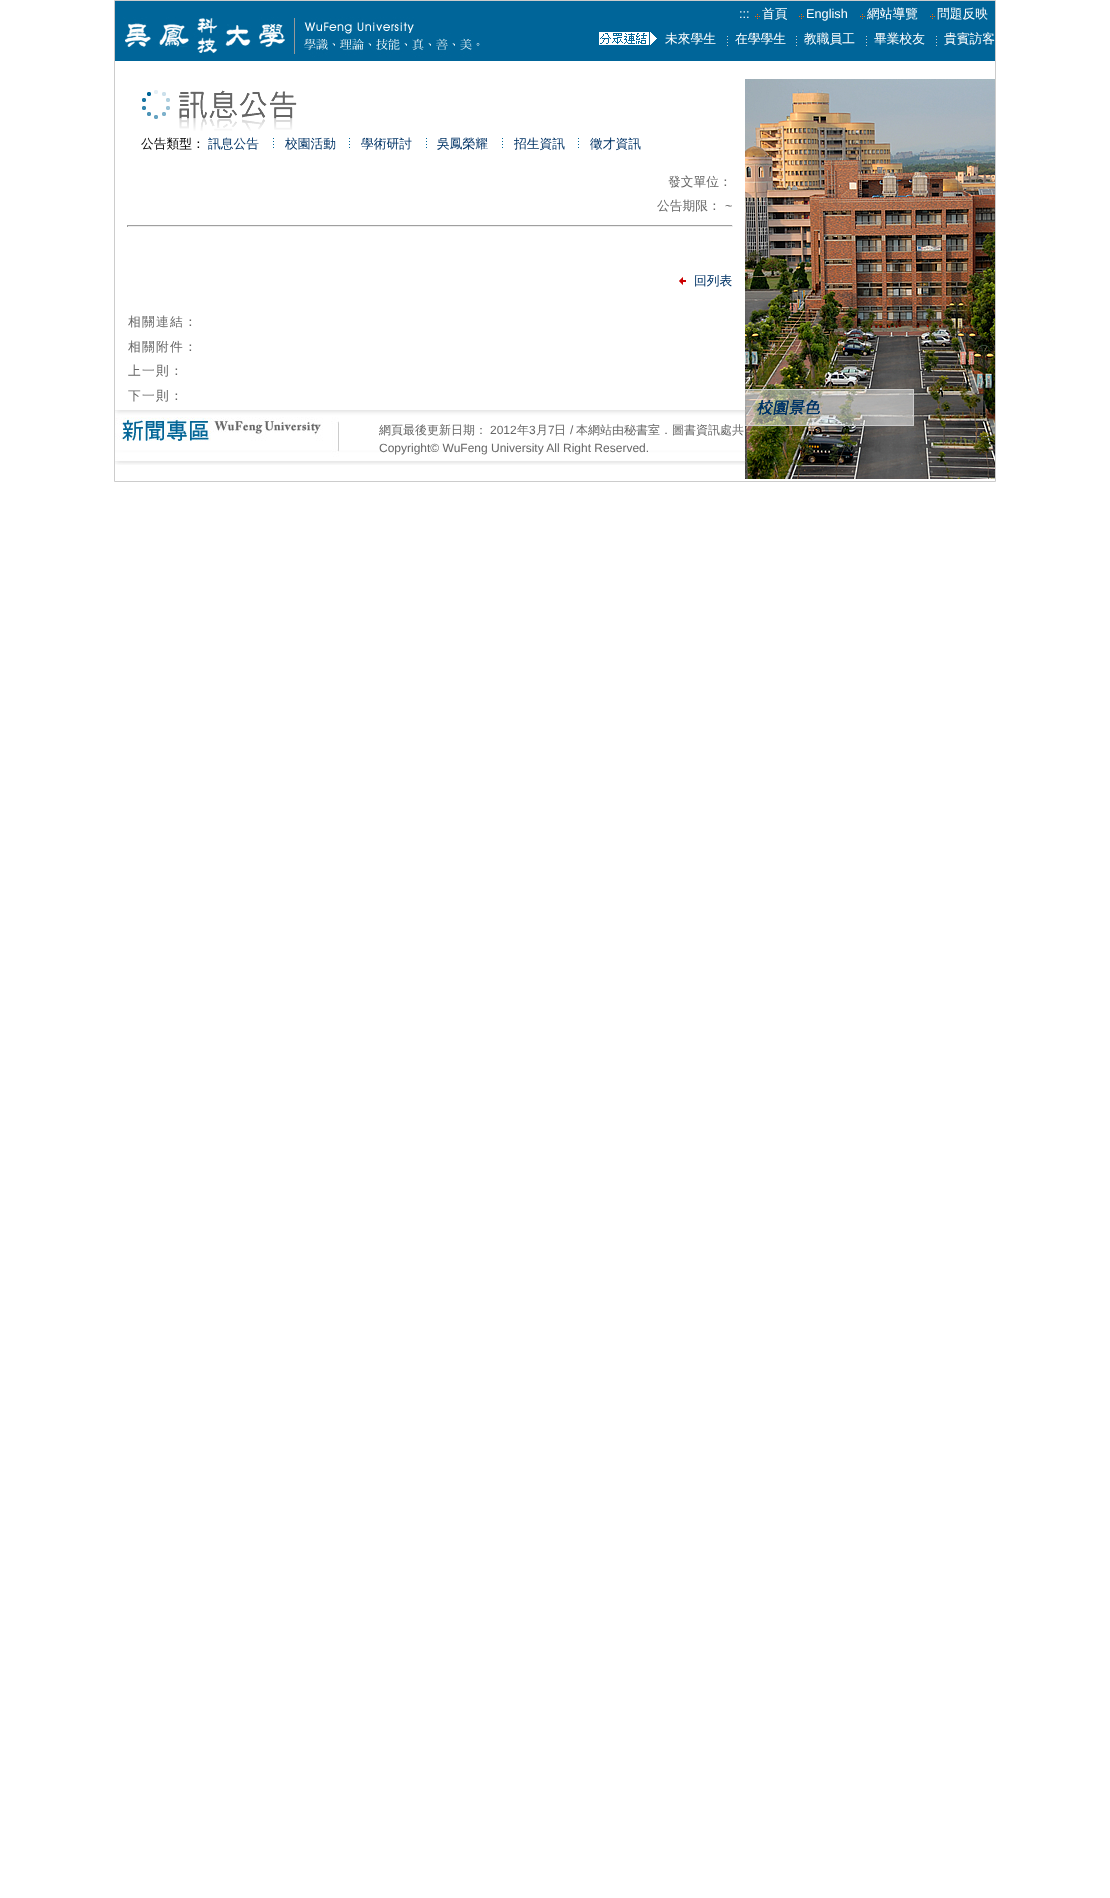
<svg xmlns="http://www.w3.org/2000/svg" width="1110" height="1898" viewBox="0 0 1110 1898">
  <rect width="100%" height="100%" fill="#fff"/>
  <path d="M114.5 0.5h881v481H114.5z" fill="none" stroke="#ccc"/>
  <image x="115" y="1" width="880" height="60" href="img/1.png"/>
  <image x="755" y="14" width="5" height="5" href="img/2.png"/>
  <image x="799" y="14" width="5" height="5" href="img/2.png"/>
  <image x="860" y="14" width="5" height="5" href="img/2.png"/>
  <image x="930" y="14" width="5" height="5" href="img/2.png"/>
  <image x="599" y="32" width="58" height="13" href="img/3.png"/>
  <image x="727" y="36" width="1" height="10" href="img/4.png"/>
  <image x="796" y="36" width="1" height="10" href="img/4.png"/>
  <image x="866" y="36" width="1" height="10" href="img/4.png"/>
  <image x="936" y="36" width="1" height="10" href="img/4.png"/>
  <image x="142" y="90" width="155" height="41" href="img/5.png"/>
  <image x="273" y="138" width="1" height="10" href="img/6.png"/>
  <image x="349" y="138" width="1" height="10" href="img/6.png"/>
  <image x="426" y="138" width="1" height="10" href="img/6.png"/>
  <image x="502" y="138" width="1" height="10" href="img/6.png"/>
  <image x="578" y="138" width="1" height="10" href="img/6.png"/>
  <path d="M127 225h606v1H127z" fill="#9f9f9f"/>
  <path d="M732 225h1v2H732z" fill="#eee"/>
  <path d="M127 226h606v1H127z" fill="#eee"/>
  <path d="M127 225h1v2H127z" fill="#9f9f9f"/>
  <image x="679" y="277" width="7" height="8" href="img/7.png"/>
  <image x="745" y="79" width="250" height="400" href="img/8.png"/>
  <image x="115" y="410" width="630" height="55" href="img/9.png"/>
  <text x="739" y="18" font-family="Liberation Sans" font-size="12.75" fill="#fff">:::</text>
  <text x="762" y="18" font-family="WenQuanYi Zen Hei" font-size="12.75" font-weight="500" fill="#fff">首頁</text>
  <text x="806" y="18" font-family="Liberation Sans" font-size="12.75" fill="#fff">English</text>
  <g font-family="WenQuanYi Zen Hei" font-size="12.75" font-weight="500" fill="#fff">
    <text x="867" y="18">網站導覽</text>
    <text x="937" y="18">問題反映</text>
    <text x="665" y="43">未來學生</text>
    <text x="735" y="43">在學學生</text>
    <text x="804" y="43">教職員工</text>
    <text x="874" y="43">畢業校友</text>
    <text x="944" y="43">貴賓訪客</text>
  </g>
  <text x="141" y="148" font-family="WenQuanYi Zen Hei" font-size="12.75" font-weight="500" fill="#000">公告類型：</text>
  <g font-family="WenQuanYi Zen Hei" font-size="12.75" font-weight="500" fill="#036">
    <text x="208" y="148">訊息公告</text>
    <text x="285" y="148">校園活動</text>
    <text x="361" y="148">學術研討</text>
    <text x="437" y="148">吳鳳榮耀</text>
    <text x="514" y="148">招生資訊</text>
    <text x="590" y="148">徵才資訊</text>
  </g>
  <g font-family="WenQuanYi Zen Hei" font-size="12.75" font-weight="500" fill="#666">
    <text x="668" y="186">發文單位：</text>
    <text x="657" y="210">公告期限：</text>
  </g>
  <text x="725" y="210" font-family="Liberation Sans" font-size="12.75" fill="#666">~</text>
  <text x="694" y="285" font-family="WenQuanYi Zen Hei" font-size="12.75" font-weight="500" fill="#036">回列表</text>
  <g font-family="WenQuanYi Zen Hei" font-size="12.75" font-weight="500" letter-spacing="1.25" fill="#666">
    <text x="128" y="326">相關連結：</text>
    <text x="128" y="351">相關附件：</text>
    <text x="128" y="375">上一則：</text>
    <text x="128" y="400">下一則：</text>
  </g>
  <text x="379" y="434" font-family="WenQuanYi Zen Hei" font-size="12" font-weight="500" fill="#666">網頁最後更新日期：</text>
  <text x="490" y="434" font-family="Liberation Sans" font-size="12" fill="#666">2012</text>
  <text x="517" y="434" font-family="WenQuanYi Zen Hei" font-size="12" font-weight="500" fill="#666">年</text>
  <text x="529" y="434" font-family="Liberation Sans" font-size="12" fill="#666">3</text>
  <text x="536" y="434" font-family="WenQuanYi Zen Hei" font-size="12" font-weight="500" fill="#666">月</text>
  <text x="548" y="434" font-family="Liberation Sans" font-size="12" fill="#666">7</text>
  <text x="554" y="434" font-family="WenQuanYi Zen Hei" font-size="12" font-weight="500" fill="#666">日</text>
  <text x="570" y="434" font-family="Liberation Sans" font-size="12" fill="#666">/</text>
  <text x="576" y="434" font-family="WenQuanYi Zen Hei" font-size="12" font-weight="500" fill="#666">本網站由秘書室．圖書資訊處共</text>
  <text x="379" y="452" font-family="Liberation Sans" font-size="12" fill="#666">Copyright© WuFeng University All Right Reserved.</text>
</svg>
